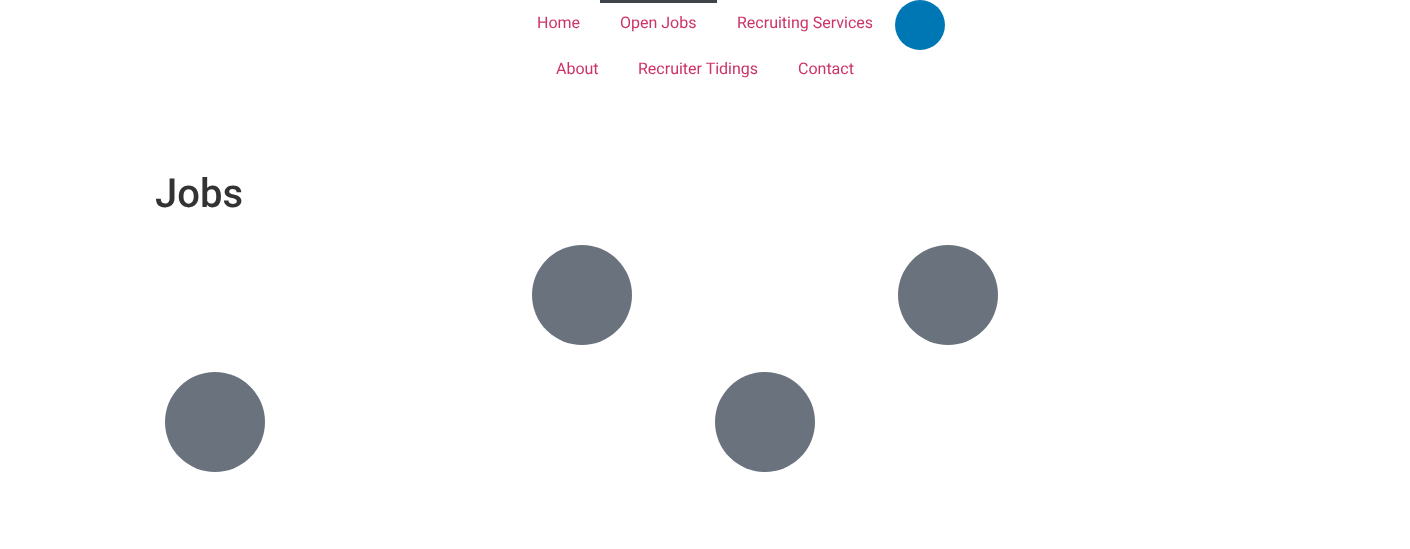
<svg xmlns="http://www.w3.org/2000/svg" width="1410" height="549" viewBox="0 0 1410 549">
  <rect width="100%" height="100%" fill="#fff"/>
  <path d="M600 0h117v3H600z" fill="#3f444b"/>
  <circle cx="920" cy="25" r="25" fill="#0077b5"/>
  <circle cx="582" cy="295" r="50" fill="#69727d"/>
  <circle cx="948" cy="295" r="50" fill="#69727d"/>
  <circle cx="215" cy="422" r="50" fill="#69727d"/>
  <circle cx="765" cy="422" r="50" fill="#69727d"/>
  <g font-family="Roboto" font-size="16" fill="#c36">
    <text x="537" y="28">Home</text>
    <text x="620" y="28">Open Jobs</text>
    <text x="737" y="28">Recruiting Services</text>
    <text x="556" y="74">About</text>
    <text x="638" y="74">Recruiter Tidings</text>
    <text x="798" y="74">Contact</text>
  </g>
  <text x="155" y="207" font-family="Roboto" font-size="40" font-weight="500" fill="#333">Jobs</text>
</svg>
